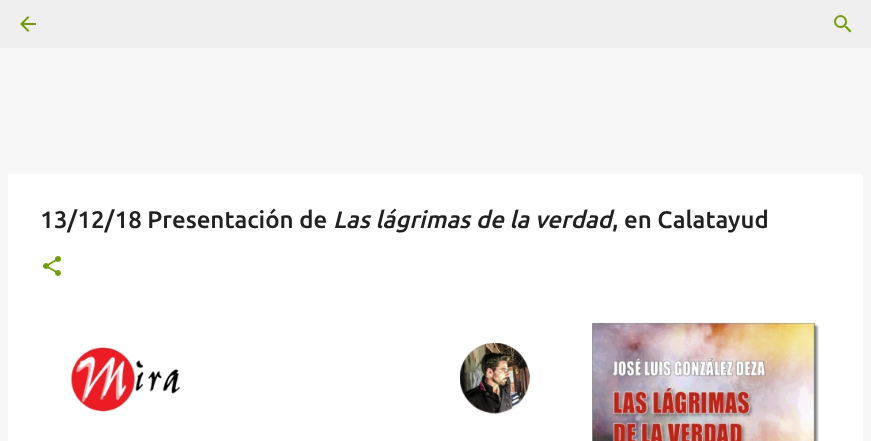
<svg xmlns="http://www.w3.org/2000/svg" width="871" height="441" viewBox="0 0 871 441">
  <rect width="100%" height="100%" fill="#f7f7f7"/>
  <path d="M0 0h871v48H0z" fill="#efefef"/>
  <image x="20" y="16" width="16" height="16" href="img/1.png"/>
  <image x="834" y="15" width="18" height="18" href="img/2.png"/>
  <path d="M8 174h855v267H8z" fill="#fff"/>
  <image x="43" y="256" width="18" height="20" href="img/3.png"/>
  <image x="70" y="322" width="750" height="119" href="img/4.png"/>
  <text x="40" y="228" font-family="Ubuntu" font-size="24" font-weight="500" fill="#212121">13/12/18 Presentación de</text>
  <text x="333" y="228" font-family="Ubuntu" font-size="24" font-weight="500" font-style="italic" fill="#212121">Las lágrimas de la verdad</text>
  <text x="612" y="228" font-family="Ubuntu" font-size="24" font-weight="500" fill="#212121">, en Calatayud</text>
</svg>
